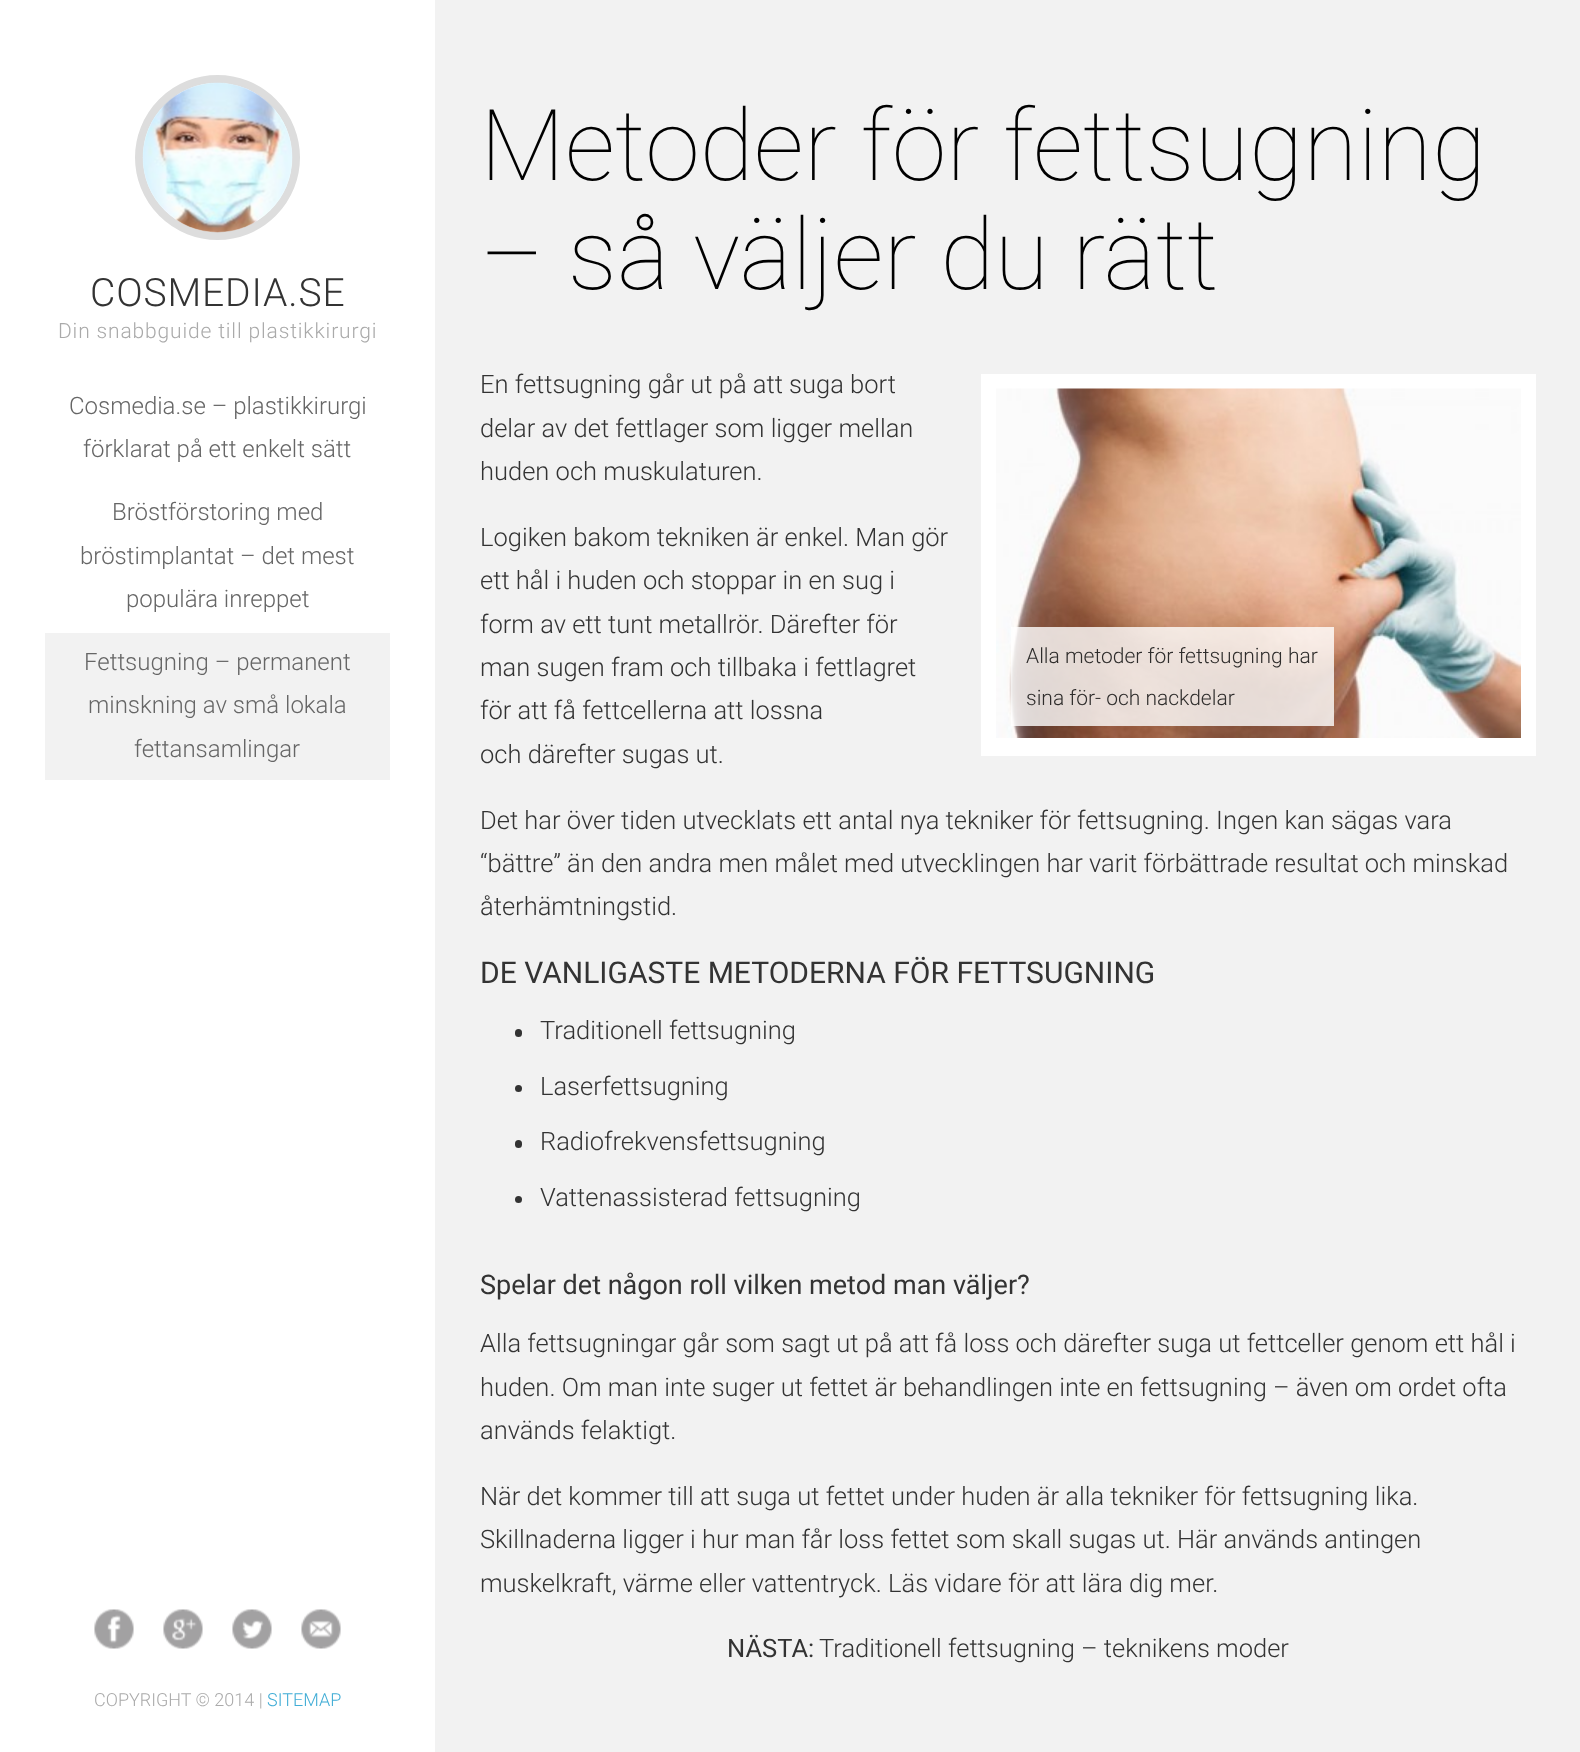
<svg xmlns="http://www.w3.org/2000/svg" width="1580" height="1752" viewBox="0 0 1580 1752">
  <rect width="100%" height="100%" fill="#f2f2f2"/>
  <path d="M0 0h435v1752H0z" fill="#fff"/>
  <circle cx="217.5" cy="157.5" r="78.5" fill="none" stroke="#ddd" stroke-width="8"/>
  <image x="142" y="82" width="151" height="151" href="img/1.png"/>
  <path d="M45 633h345v147H45z" fill="#f2f2f2"/>
  <path d="M981 374h555v382H981z" fill="#fff"/>
  <image x="996" y="388" width="525" height="350" href="img/2.png"/>
  <path d="M1011 627h323v99H1011z" fill="#ffffffcc"/>
  <rect x="515" y="1029" width="7" height="8" rx="3.5" fill="#333"/>
  <circle cx="518.5" cy="1088.5" r="3.5" fill="#333"/>
  <rect x="515" y="1140" width="7" height="8" rx="3.5" fill="#333"/>
  <circle cx="518.5" cy="1199.5" r="3.5" fill="#333"/>
  <image x="94" y="1609" width="40" height="40" href="img/3.png"/>
  <image x="163" y="1609" width="40" height="40" href="img/4.png"/>
  <image x="232" y="1609" width="40" height="40" href="img/5.png"/>
  <image x="301" y="1609" width="40" height="40" href="img/6.png"/>
  <text x="90" y="306" font-family="Roboto" font-size="39" font-weight="300" letter-spacing="0.85" fill="#333">COSMEDIA.SE</text>
  <text x="58" y="338" font-family="Roboto" font-size="21" font-weight="300" letter-spacing="0.85" fill="#aaa">Din snabbguide till plastikkirurgi</text>
  <g font-family="Roboto" font-size="24" font-weight="300" fill="#666">
    <text x="69" y="414">Cosmedia.se – plastikkirurgi</text>
    <text x="83" y="457">förklarat på ett enkelt sätt</text>
    <text x="112" y="520">Bröstförstoring med</text>
    <text x="80" y="564">bröstimplantat – det mest</text>
    <text x="126" y="607">populära inreppet</text>
    <text x="84" y="670">Fettsugning – permanent</text>
    <text x="88" y="713">minskning av små lokala</text>
    <text x="134" y="757">fettansamlingar</text>
  </g>
  <g font-family="Roboto" font-size="99" font-weight="100" fill="#000">
    <text x="480" y="180">Metoder för fettsugning</text>
    <text x="480" y="289">– så väljer du rätt</text>
  </g>
  <g font-family="Roboto" font-size="25.5" font-weight="300" fill="#333">
    <text x="480" y="393">En fettsugning går ut på att suga bort</text>
    <text x="480" y="437">delar av det fettlager som ligger mellan</text>
    <text x="480" y="480">huden och muskulaturen.</text>
    <text x="480" y="546">Logiken bakom tekniken är enkel. Man gör</text>
    <text x="480" y="589">ett hål i huden och stoppar in en sug i</text>
    <text x="480" y="633">form av ett tunt metallrör. Därefter för</text>
    <text x="480" y="676">man sugen fram och tillbaka i fettlagret</text>
    <text x="480" y="719">för att få fettcellerna att lossna</text>
    <text x="480" y="763">och därefter sugas ut.</text>
  </g>
  <g font-family="Roboto" font-size="21" font-weight="300" fill="#2f2d2c">
    <text x="1026" y="663">Alla metoder för fettsugning har</text>
    <text x="1026" y="705">sina för- och nackdelar</text>
  </g>
  <g font-family="Roboto" font-size="25.5" font-weight="300" fill="#333">
    <text x="480" y="829">Det har över tiden utvecklats ett antal nya tekniker för fettsugning. Ingen kan sägas vara</text>
    <text x="480" y="872">“bättre” än den andra men målet med utvecklingen har varit förbättrade resultat och minskad</text>
    <text x="480" y="915">återhämtningstid.</text>
  </g>
  <text x="480" y="983" font-family="Roboto" font-size="30" fill="#333">DE VANLIGASTE METODERNA FÖR FETTSUGNING</text>
  <g font-family="Roboto" font-size="25.5" font-weight="300" fill="#333">
    <text x="540" y="1039">Traditionell fettsugning</text>
    <text x="540" y="1095">Laserfettsugning</text>
    <text x="540" y="1150">Radiofrekvensfettsugning</text>
    <text x="540" y="1206">Vattenassisterad fettsugning</text>
  </g>
  <text x="480" y="1294" font-family="Roboto" font-size="27" fill="#333">Spelar det någon roll vilken metod man väljer?</text>
  <g font-family="Roboto" font-size="25.5" font-weight="300" fill="#333">
    <text x="480" y="1352">Alla fettsugningar går som sagt ut på att få loss och därefter suga ut fettceller genom ett hål i</text>
    <text x="480" y="1396">huden. Om man inte suger ut fettet är behandlingen inte en fettsugning – även om ordet ofta</text>
    <text x="480" y="1439">används felaktigt.</text>
    <text x="480" y="1505">När det kommer till att suga ut fettet under huden är alla tekniker för fettsugning lika.</text>
    <text x="480" y="1548">Skillnaderna ligger i hur man får loss fettet som skall sugas ut. Här används antingen</text>
    <text x="480" y="1592">muskelkraft, värme eller vattentryck. Läs vidare för att lära dig mer.</text>
  </g>
  <text x="727" y="1657" font-family="Roboto" font-size="25.5" fill="#333">NÄSTA:</text>
  <text x="819" y="1657" font-family="Roboto" font-size="25.5" font-weight="300" fill="#333">Traditionell fettsugning – teknikens moder</text>
  <text x="94" y="1706" font-family="Roboto" font-size="18" font-weight="300" fill="#aaa">COPYRIGHT © 2014 |</text>
  <text x="267" y="1706" font-family="Roboto" font-size="18" font-weight="300" fill="#41add6">SITEMAP</text>
</svg>
